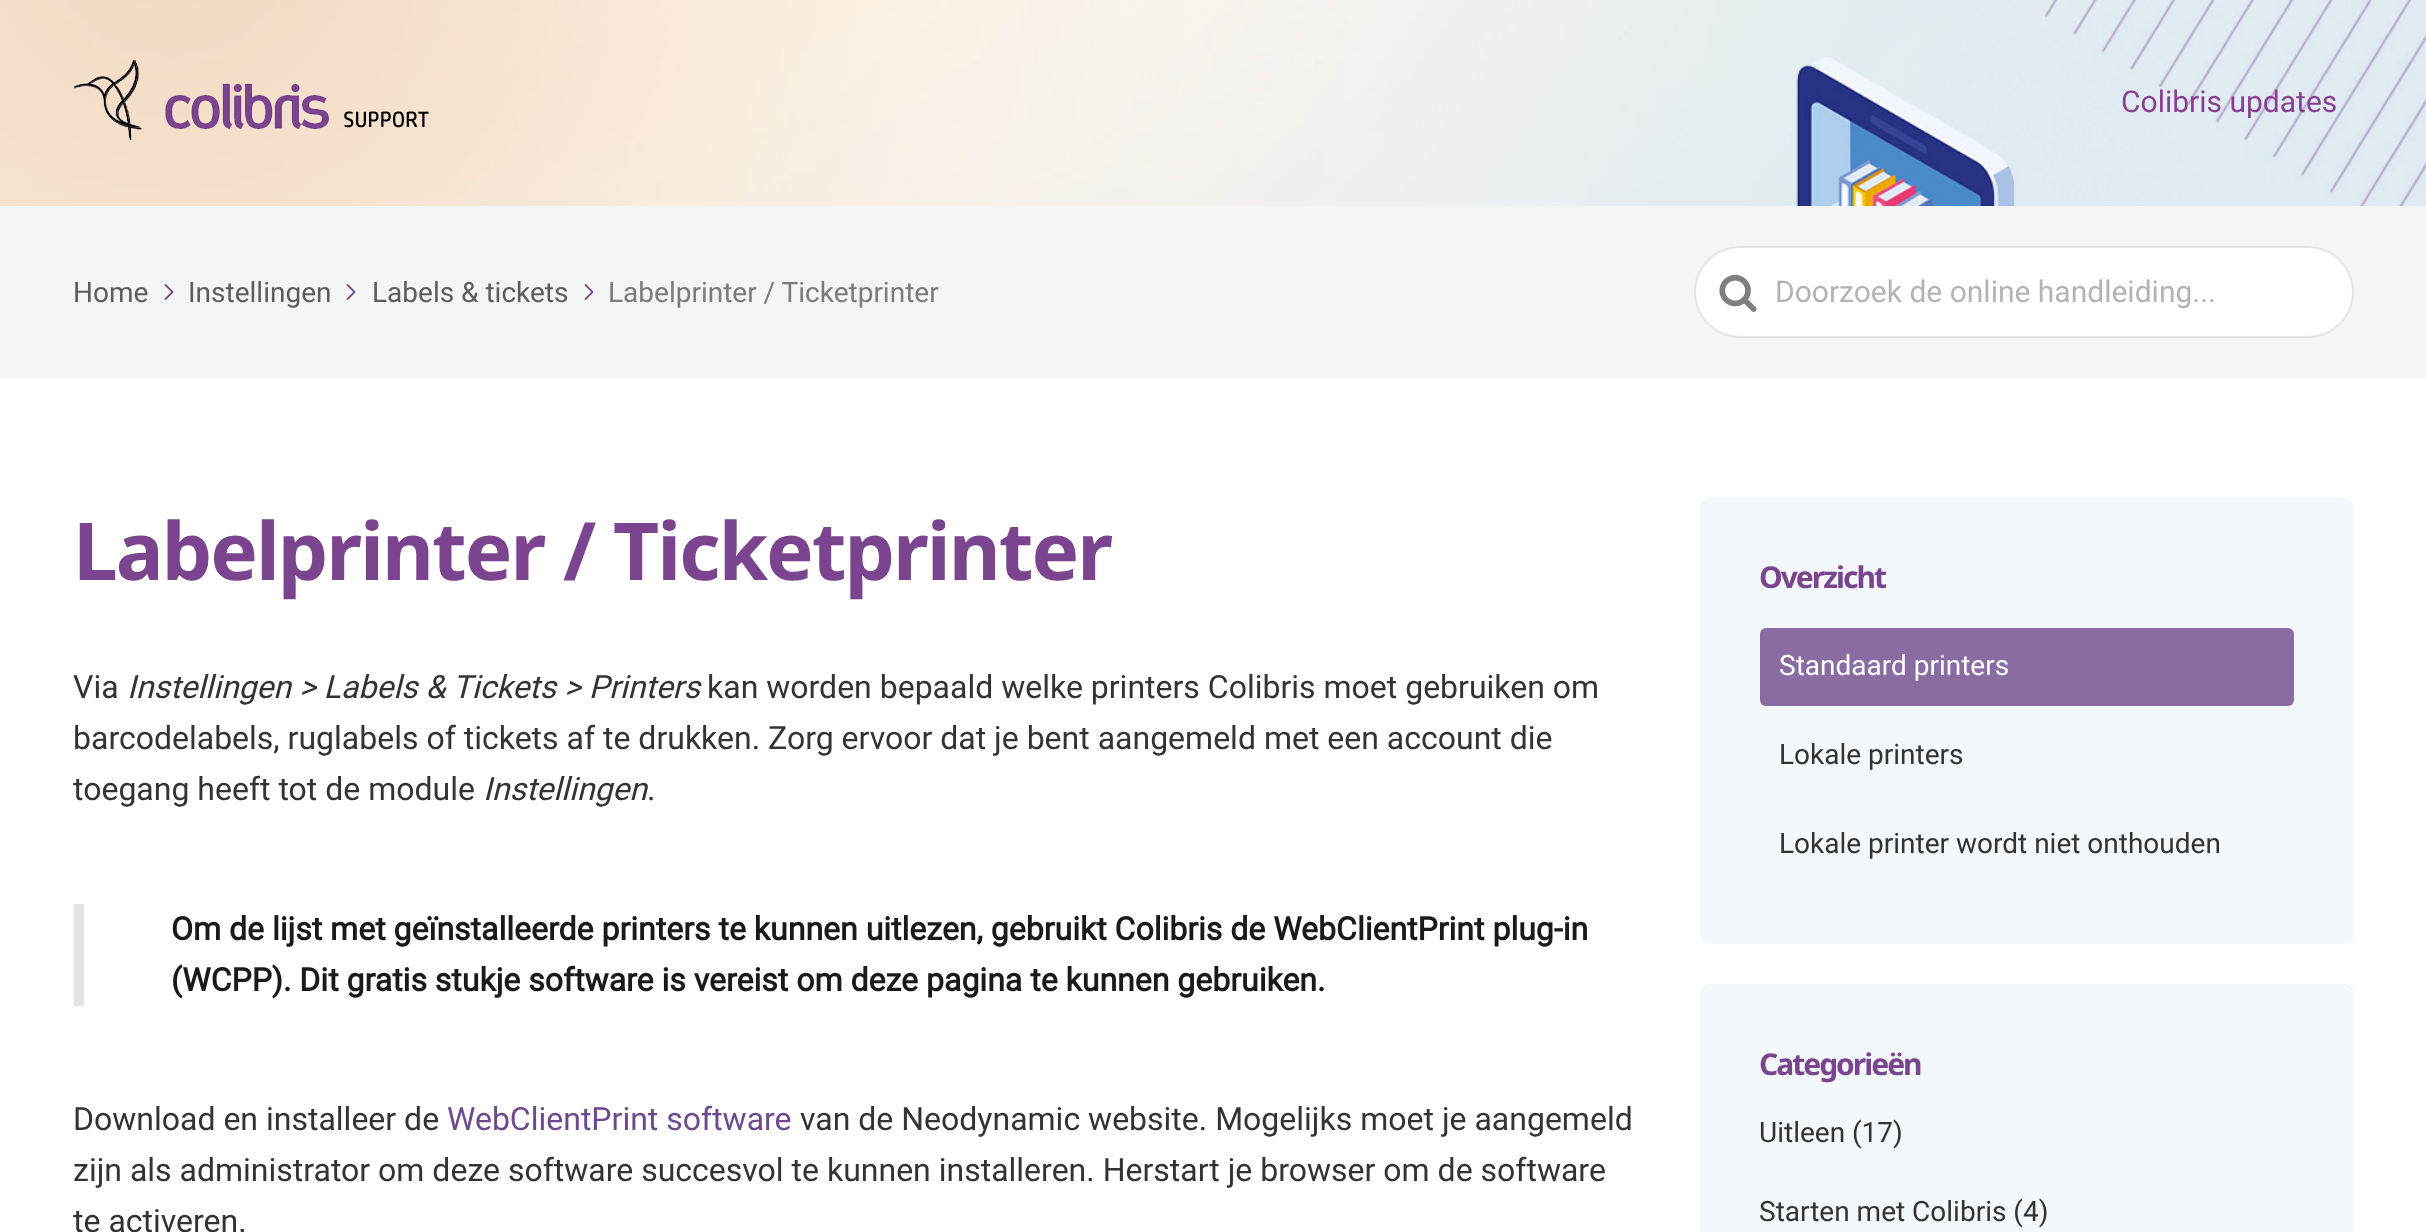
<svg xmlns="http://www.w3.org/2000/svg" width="2426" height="1232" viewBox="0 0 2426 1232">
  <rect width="100%" height="100%" fill="#fff"/>
  <image x="0" y="0" width="2426" height="206" href="img/1.png"/>
  <image x="74" y="60" width="355" height="80" href="img/2.png"/>
  <path d="M0 206h2426v172H0z" fill="#f4f5f5"/>
  <image x="164" y="284" width="10" height="16" href="img/3.png"/>
  <image x="346" y="284" width="10" height="16" href="img/3.png"/>
  <image x="584" y="284" width="10" height="16" href="img/3.png"/>
  <rect x="1694" y="246" width="660" height="92" rx="46" fill="#fff"/>
  <rect x="1695" y="247" width="658" height="90" rx="45" fill="none" stroke="#cccccc80" stroke-width="2"/>
  <image x="1719" y="274" width="38" height="38" href="img/4.png"/>
  <path d="M74 904h10v102H74z" fill="#e3e4e5"/>
  <rect x="1700" y="498" width="654" height="446" rx="10" fill="#f2f8fc"/>
  <rect x="1760" y="628" width="534" height="78" rx="6" fill="#886ca2"/>
  <rect x="1700" y="984" width="654" height="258" rx="10" fill="#f2f8fc"/>
  <text x="2121" y="112" font-family="Roboto" font-size="30" fill="#8c3e90">Colibris updates</text>
  <g font-family="Roboto" font-size="28" fill="#5c5c5c">
    <text x="73" y="302">Home</text>
    <text x="188" y="302">Instellingen</text>
    <text x="372" y="302">Labels &amp; tickets</text>
  </g>
  <text x="608" y="302" font-family="Roboto" font-size="28" fill="#7a7b7b">Labelprinter / Ticketprinter</text>
  <text x="1775" y="302" font-family="Roboto" font-size="30" fill="#b3b3b3">Doorzoek de online handleiding...</text>
  <text x="73" y="580" font-family="Noto Sans" font-size="80" font-weight="bold" letter-spacing="-2" fill="#7a458e">Labelprinter / Ticketprinter</text>
  <text x="73" y="698" font-family="Roboto" font-size="32" fill="#333">Via</text>
  <text x="127" y="698" font-family="Roboto" font-size="32" font-style="italic" fill="#333">Instellingen &gt; Labels &amp; Tickets &gt; Printers</text>
  <g font-family="Roboto" font-size="32" fill="#333">
    <text x="707" y="698">kan worden bepaald welke printers Colibris moet gebruiken om</text>
    <text x="73" y="749">barcodelabels, ruglabels of tickets af te drukken. Zorg ervoor dat je bent aangemeld met een account die</text>
    <text x="73" y="800">toegang heeft tot de module</text>
  </g>
  <text x="483" y="800" font-family="Roboto" font-size="32" font-style="italic" fill="#333">Instellingen</text>
  <text x="647" y="800" font-family="Roboto" font-size="32" fill="#333">.</text>
  <g font-family="Roboto" font-size="32" font-weight="bold" fill="#1a1a1a">
    <text x="171" y="940">Om de lijst met geïnstalleerde printers te kunnen uitlezen, gebruikt Colibris de WebClientPrint plug-in</text>
    <text x="171" y="991">(WCPP). Dit gratis stukje software is vereist om deze pagina te kunnen gebruiken.</text>
  </g>
  <text x="73" y="1130" font-family="Roboto" font-size="32" fill="#333">Download en installeer de</text>
  <text x="447" y="1130" font-family="Roboto" font-size="32" fill="#6e498c">WebClientPrint software</text>
  <g font-family="Roboto" font-size="32" fill="#333">
    <text x="800" y="1130">van de Neodynamic website. Mogelijks moet je aangemeld</text>
    <text x="73" y="1181">zijn als administrator om deze software succesvol te kunnen installeren. Herstart je browser om de software</text>
    <text x="73" y="1232">te activeren.</text>
  </g>
  <text x="1759" y="588" font-family="Noto Sans" font-size="30" font-weight="bold" letter-spacing="-2" fill="#7a458e">Overzicht</text>
  <text x="1779" y="675" font-family="Roboto" font-size="28" fill="#fff">Standaard printers</text>
  <g font-family="Roboto" font-size="28" fill="#333">
    <text x="1779" y="764">Lokale printers</text>
    <text x="1779" y="853">Lokale printer wordt niet onthouden</text>
  </g>
  <text x="1759" y="1075" font-family="Noto Sans" font-size="30" font-weight="bold" letter-spacing="-2" fill="#7a458e">Categorieën</text>
  <g font-family="Roboto" font-size="28" fill="#333">
    <text x="1759" y="1142">Uitleen (17)</text>
    <text x="1759" y="1221">Starten met Colibris (4)</text>
  </g>
</svg>
